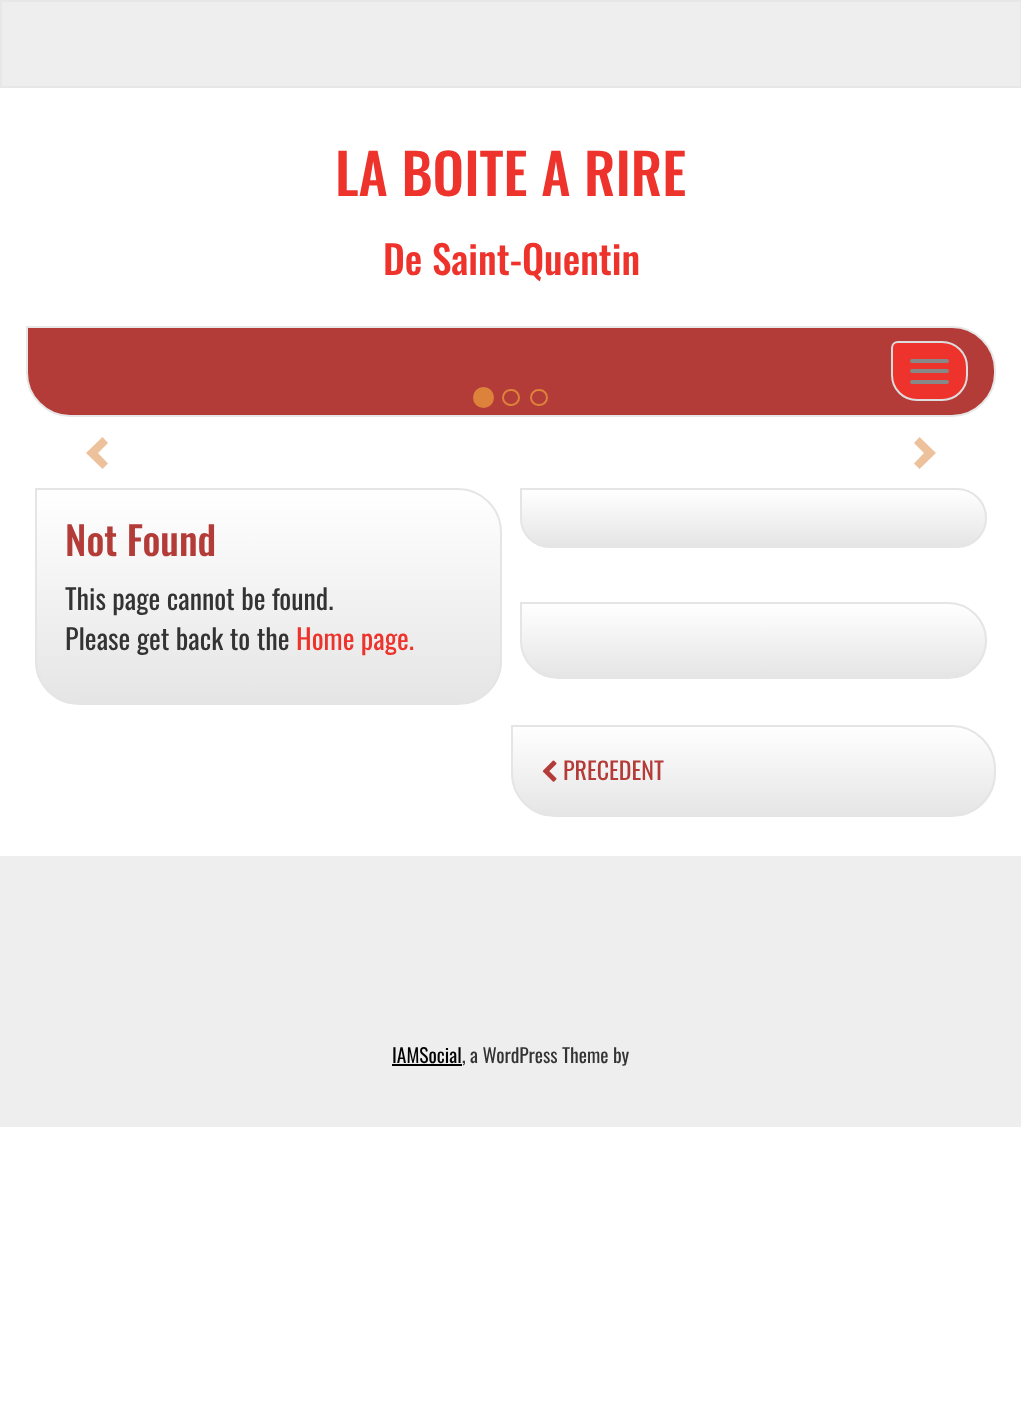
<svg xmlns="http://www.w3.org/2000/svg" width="1021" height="1409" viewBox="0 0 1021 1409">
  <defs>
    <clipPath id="clip1"><path d="M520 488H957C973.5 488 987 501.5 987 518C987 534.5 973.5 548 957 548H550C533.5 548 520 534.5 520 518Z"/></clipPath>
    <linearGradient id="g1" gradientUnits="userSpaceOnUse" x1="753" y1="490" x2="753" y2="546"><stop offset="0" stop-color="#fff"/><stop offset="1" stop-color="#e5e5e5"/></linearGradient>
    <clipPath id="clip2"><path d="M35 488H458C482.5 488 502 507.5 502 532V661C502 685.5 482.5 705 458 705H79C54.5 705 35 685.5 35 661Z"/></clipPath>
    <linearGradient id="g2" gradientUnits="userSpaceOnUse" x1="269" y1="490" x2="269" y2="704"><stop offset="0" stop-color="#fff"/><stop offset="1" stop-color="#e5e5e5"/></linearGradient>
    <clipPath id="clip3"><path d="M520 602H948.5C970 602 987 619 987 640.5C987 662 970 679 948.5 679H558.5C537 679 520 662 520 640.5Z"/></clipPath>
    <linearGradient id="g3" gradientUnits="userSpaceOnUse" x1="753" y1="604" x2="753" y2="677"><stop offset="0" stop-color="#fff"/><stop offset="1" stop-color="#e5e5e5"/></linearGradient>
    <clipPath id="clip4"><path d="M511 725H952C976.5 725 996 744.5 996 769V773C996 797.5 976.5 817 952 817H555C530.5 817 511 797.5 511 773Z"/></clipPath>
    <linearGradient id="g4" gradientUnits="userSpaceOnUse" x1="753" y1="726" x2="753" y2="816"><stop offset="0" stop-color="#fff"/><stop offset="1" stop-color="#e5e5e5"/></linearGradient>
  </defs>
  <rect width="100%" height="100%" fill="#fff"/>
  <path d="M1 1h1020v86H1z" fill="#eee" stroke="#e7e7e7" stroke-width="2"/>
  <path d="M27 327H952C975.5 327 995 346.5 995 370V373C995 396.5 975.5 416 952 416H70C46.5 416 27 396.5 27 373Z" fill="#b43c38" stroke="#e7e7e7" stroke-width="2"/>
  <path d="M898 342H942C956 342 967 353 967 367V375C967 389 956 400 942 400H917C903 400 892 389 892 375V348C892 344.5 894.5 342 898 342Z" fill="#ed332c" stroke="#ddd" stroke-width="2"/>
  <rect x="910" y="359" width="39" height="4" rx="2" fill="#888"/>
  <rect x="910" y="369" width="39" height="4" rx="2" fill="#888"/>
  <rect x="910" y="380" width="39" height="4" rx="2" fill="#888"/>
  <circle cx="483.5" cy="397.5" r="9.5" fill="#dd823b" stroke="#dd823b" stroke-width="2"/>
  <rect x="503" y="390" width="16" height="15" rx="7.5" fill="none" stroke="#dd823b" stroke-width="2"/>
  <rect x="531" y="390" width="16" height="15" rx="7.5" fill="none" stroke="#dd823b" stroke-width="2"/>
  <path d="M108 443L98 453L108 463.5L102.5 469L86 453L102.5 437Z" fill="#eec19d"/>
  <path d="M936 453L919.5 469L914 463.5L924 453L914 443L919.5 437Z" fill="#eec19d"/>
  <g clip-path="url(#clip1)">
    <path d="M520 490h467v56H520z" fill="url(#g1)"/>
  </g>
  <path d="M521 489H957C973 489 986 502 986 518C986 534 973 547 957 547H550C534 547 521 534 521 518Z" fill="none" stroke="#e5e5e5" stroke-width="2"/>
  <g clip-path="url(#clip2)">
    <path d="M35 490h467v214H35z" fill="url(#g2)"/>
  </g>
  <path d="M36 489H458C481.5 489 501 508.5 501 532V661C501 684.5 481.5 704 458 704H79C55.5 704 36 684.5 36 661Z" fill="none" stroke="#e5e5e5" stroke-width="2"/>
  <g clip-path="url(#clip3)">
    <path d="M520 604h467v73H520z" fill="url(#g3)"/>
  </g>
  <path d="M521 603H948.5C969 603 986 620 986 640.5C986 661 969 678 948.5 678H558.5C538 678 521 661 521 640.5Z" fill="none" stroke="#e5e5e5" stroke-width="2"/>
  <g clip-path="url(#clip4)">
    <path d="M511 726h485v90H511z" fill="url(#g4)"/>
  </g>
  <path d="M512 726H952C975.5 726 995 745.5 995 769V773C995 796.5 975.5 816 952 816H555C531.5 816 512 796.5 512 773Z" fill="none" stroke="#e5e5e5" stroke-width="2"/>
  <image x="542" y="760" width="15" height="22" href="img/1.png"/>
  <path d="M0 856h1021v271H0z" fill="#eee"/>
  <path d="M392 1064h70v2H392z" fill="#000"/>
  <text x="335" y="196" font-family="Oswald" font-size="56" font-weight="500" fill="#ed332c">LA BOITE A RIRE</text>
  <text x="383" y="275" font-family="Oswald" font-size="39.25" font-weight="500" fill="#ed332c">De Saint-Quentin</text>
  <text x="65" y="556" font-family="Oswald" font-size="39.25" font-weight="500" fill="#b43c38">Not Found</text>
  <g font-family="Oswald" font-size="28" fill="#333">
    <text x="65" y="610">This page cannot be found.</text>
    <text x="65" y="650">Please get back to the</text>
  </g>
  <text x="296" y="650" font-family="Oswald" font-size="28" fill="#ed332c">Home page.</text>
  <text x="563" y="780" font-family="Oswald" font-size="24" fill="#b43c38">PRECEDENT</text>
  <text x="392" y="1063" font-family="Oswald" font-size="19.5" fill="#000">IAMSocial</text>
  <text x="462" y="1063" font-family="Oswald" font-size="19.5" fill="#333">, a WordPress Theme by</text>
</svg>
